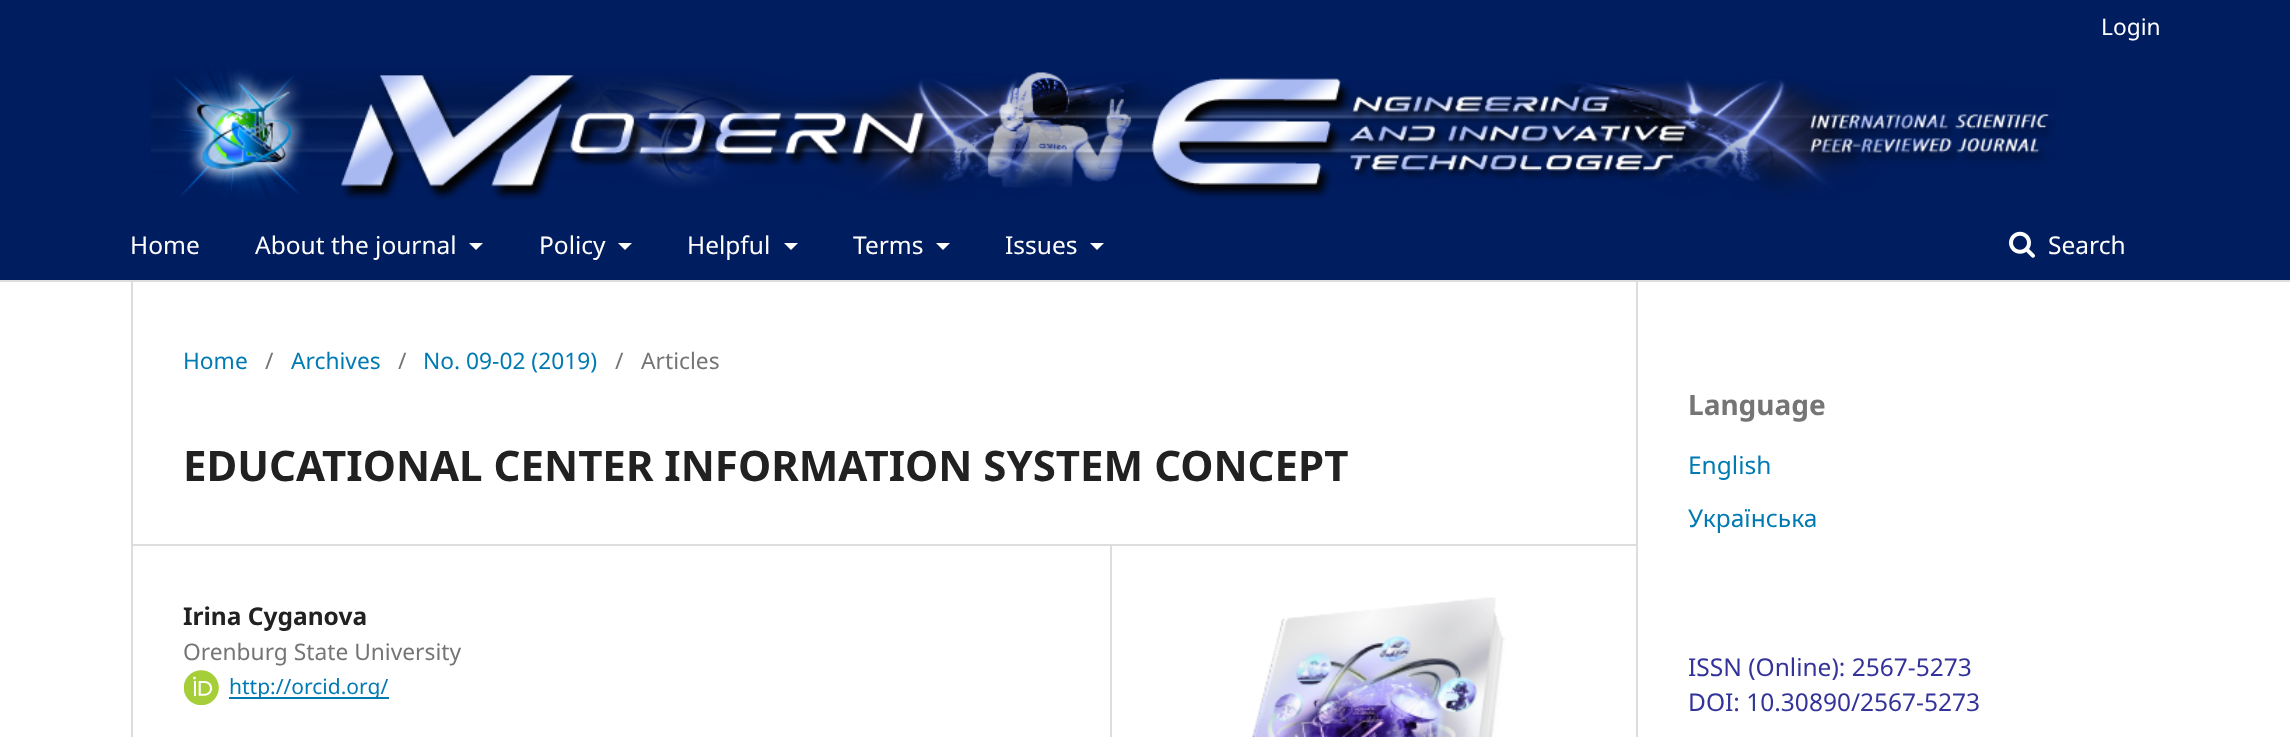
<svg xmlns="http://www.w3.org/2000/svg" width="2290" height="737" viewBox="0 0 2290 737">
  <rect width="100%" height="100%" fill="#fff"/>
  <path d="M0 0h2290v280H0z" fill="#001d5f"/>
  <path d="M0 280h2290v2H0z" fill="#ddd"/>
  <path d="M469 243H483L476 250Z" fill="#fff"/>
  <path d="M618 243H632L625 250Z" fill="#fff"/>
  <path d="M784 243H798L791 250Z" fill="#fff"/>
  <path d="M936 243H950L943 250Z" fill="#fff"/>
  <path d="M1090 243H1104L1097 250Z" fill="#fff"/>
  <image x="2009" y="231" width="26" height="27" href="img/1.png"/>
  <image x="151" y="68" width="1904" height="132" href="img/2.png"/>
  <path d="M131 544h1505v2H131z" fill="#ddd"/>
  <path d="M131 282h2v455H131z" fill="#ddd"/>
  <path d="M1110 546h2v191H1110z" fill="#ddd"/>
  <image x="184" y="670" width="35" height="35" href="img/3.png"/>
  <path d="M229 697h160v2H229z" fill="#007ab2"/>
  <image x="1252" y="597" width="255" height="140" href="img/4.png"/>
  <path d="M1636 282h2v455H1636z" fill="#ddd"/>
  <text x="2101" y="35" font-family="Noto Sans" font-size="22.75" fill="#fff">Login</text>
  <g font-family="Noto Sans" font-size="24.5" fill="#fff">
    <text x="130" y="254">Home</text>
    <text x="255" y="254">About the journal</text>
    <text x="539" y="254">Policy</text>
    <text x="687" y="254">Helpful</text>
    <text x="853" y="254">Terms</text>
    <text x="1005" y="254">Issues</text>
    <text x="2048" y="254">Search</text>
  </g>
  <text x="183" y="369" font-family="Noto Sans" font-size="22.75" fill="#007ab2">Home</text>
  <text x="265" y="369" font-family="Noto Sans" font-size="22.75" fill="#757575">/</text>
  <text x="291" y="369" font-family="Noto Sans" font-size="22.75" fill="#007ab2">Archives</text>
  <text x="398" y="369" font-family="Noto Sans" font-size="22.75" fill="#757575">/</text>
  <text x="423" y="369" font-family="Noto Sans" font-size="22.75" fill="#007ab2">No. 09-02 (2019)</text>
  <g font-family="Noto Sans" font-size="22.75" fill="#757575">
    <text x="615" y="369">/</text>
    <text x="641" y="369">Articles</text>
  </g>
  <text x="183" y="481" font-family="Noto Sans" font-size="42" font-weight="bold" fill="#212121">EDUCATIONAL CENTER INFORMATION SYSTEM CONCEPT</text>
  <text x="183" y="625" font-family="Noto Sans" font-size="24.5" font-weight="bold" fill="#212121">Irina Cyganova</text>
  <text x="183" y="660" font-family="Noto Sans" font-size="22.75" fill="#757575">Orenburg State University</text>
  <text x="229" y="694" font-family="Noto Sans" font-size="21" fill="#007ab2">http://orcid.org/</text>
  <text x="1688" y="415" font-family="Noto Sans" font-size="28" font-weight="bold" fill="#757575">Language</text>
  <g font-family="Noto Sans" font-size="24.5" fill="#007ab2">
    <text x="1688" y="474">English</text>
    <text x="1688" y="527">Українська</text>
  </g>
  <g font-family="Noto Sans" font-size="24.5" fill="#339">
    <text x="1688" y="676">ISSN (Online): 2567-5273</text>
    <text x="1688" y="711">DOI: 10.30890/2567-5273</text>
  </g>
</svg>
